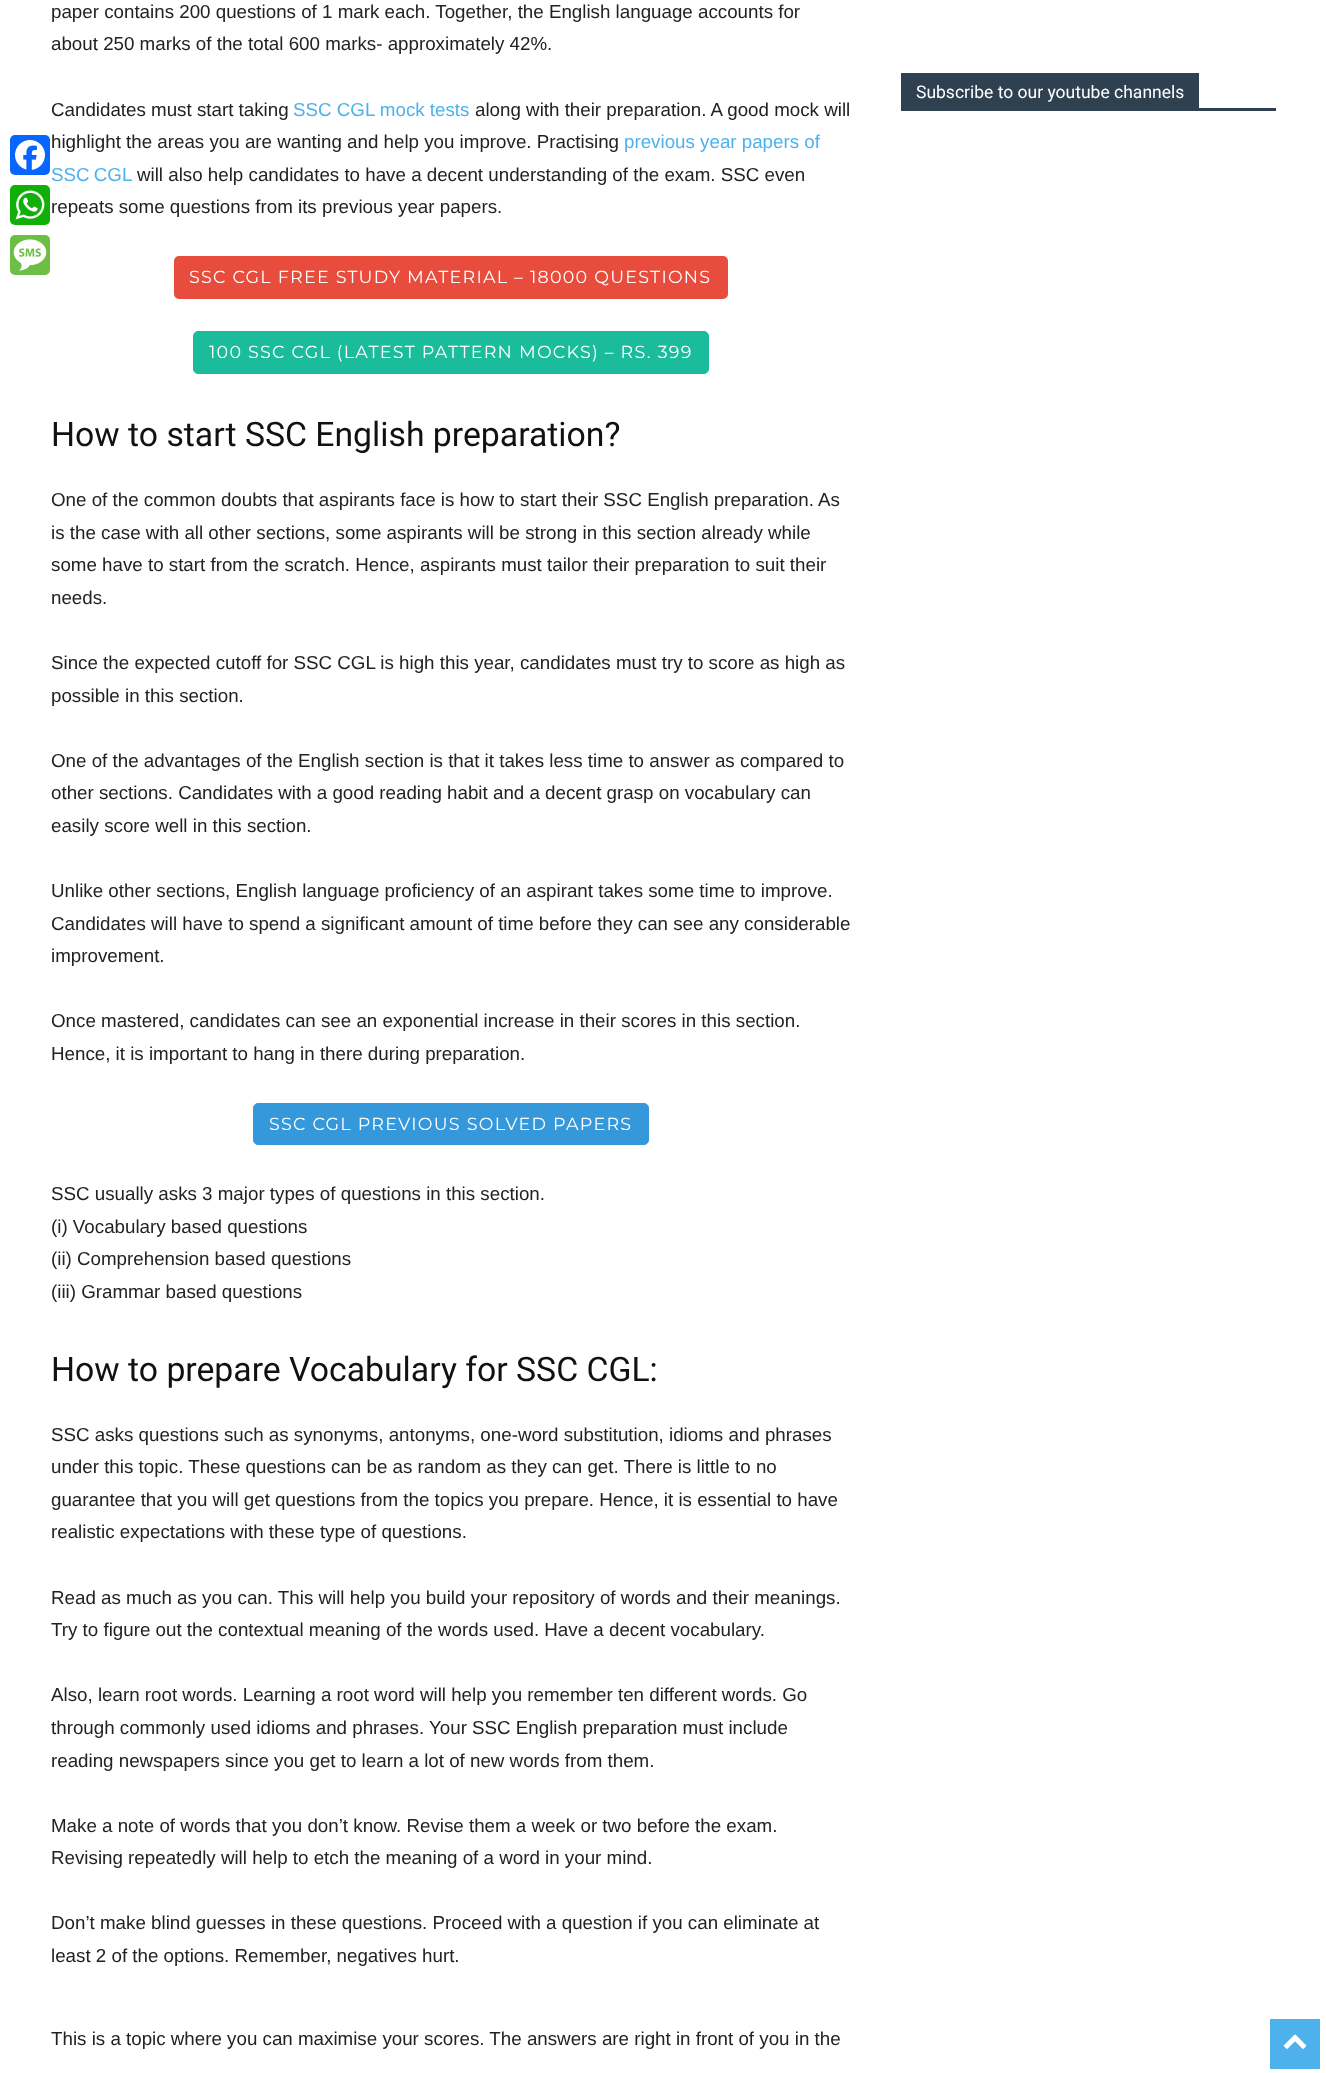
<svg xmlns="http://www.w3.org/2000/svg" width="1326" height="2073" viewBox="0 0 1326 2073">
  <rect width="100%" height="100%" fill="#fff"/>
  <rect x="10" y="135" width="40" height="40" rx="5" fill="#0866ff"/>
  <image x="15" y="140" width="30" height="30" href="img/1.png"/>
  <rect x="10" y="185" width="40" height="40" rx="5" fill="#12af0a"/>
  <image x="15" y="190" width="30" height="30" href="img/2.png"/>
  <rect x="10" y="235" width="40" height="40" rx="5" fill="#6cbe45"/>
  <image x="13" y="239" width="34" height="32" href="img/3.png"/>
  <rect x="174" y="256" width="554" height="43" rx="5" fill="#e74c3c"/>
  <rect x="193.5" y="331.5" width="515" height="42" rx="4.5" fill="#1abc9c" stroke="#1abc9c"/>
  <rect x="253.5" y="1103.5" width="395" height="41" rx="4.5" fill="#3498db" stroke="#3498db"/>
  <path d="M901 108h375v3H901z" fill="#2f4050"/>
  <path d="M901 73h298v35H901z" fill="#2f4050"/>
  <path d="M1270 2019h50v50H1270z" fill="#4db2ec"/>
  <image x="1283" y="2034" width="24" height="15" href="img/4.png"/>
  <g font-family="Liberation Sans" font-size="18.75" fill="#222">
    <text x="51" y="18">paper contains 200 questions of 1 mark each. Together, the English language accounts for</text>
    <text x="51" y="50">about 250 marks of the total 600 marks- approximately 42%.</text>
    <text x="51" y="116">Candidates must start taking</text>
  </g>
  <text x="293" y="116" font-family="Liberation Sans" font-size="18.75" fill="#4db2ec">SSC CGL mock tests</text>
  <g font-family="Liberation Sans" font-size="18.75" fill="#222">
    <text x="475" y="116">along with their preparation. A good mock will</text>
    <text x="51" y="148">highlight the areas you are wanting and help you improve. Practising</text>
  </g>
  <g font-family="Liberation Sans" font-size="18.75" fill="#4db2ec">
    <text x="624" y="148">previous year papers of</text>
    <text x="51" y="181" word-spacing="-1">SSC CGL</text>
  </g>
  <g font-family="Liberation Sans" font-size="18.75" fill="#222">
    <text x="137" y="181">will also help candidates to have a decent understanding of the exam. SSC even</text>
    <text x="51" y="213">repeats some questions from its previous year papers.</text>
  </g>
  <g font-family="Montserrat" font-size="17.5" font-weight="100" letter-spacing="1.25" fill="#fff">
    <text x="189" y="283">SSC CGL FREE STUDY MATERIAL – 18000 QUESTIONS</text>
    <text x="209" y="358">100 SSC CGL (LATEST PATTERN MOCKS) – RS. 399</text>
  </g>
  <text x="51" y="446" font-family="Roboto" font-size="33.75" fill="#111">How to start SSC English preparation?</text>
  <g font-family="Liberation Sans" font-size="18.75" fill="#222">
    <text x="51" y="506">One of the common doubts that aspirants face is how to start their SSC English preparation. As</text>
    <text x="51" y="539">is the case with all other sections, some aspirants will be strong in this section already while</text>
    <text x="51" y="571">some have to start from the scratch. Hence, aspirants must tailor their preparation to suit their</text>
    <text x="51" y="604">needs.</text>
    <text x="51" y="669">Since the expected cutoff for SSC CGL is high this year, candidates must try to score as high as</text>
    <text x="51" y="702">possible in this section.</text>
    <text x="51" y="767">One of the advantages of the English section is that it takes less time to answer as compared to</text>
    <text x="51" y="799">other sections. Candidates with a good reading habit and a decent grasp on vocabulary can</text>
    <text x="51" y="832">easily score well in this section.</text>
    <text x="51" y="897">Unlike other sections, English language proficiency of an aspirant takes some time to improve.</text>
    <text x="51" y="930">Candidates will have to spend a significant amount of time before they can see any considerable</text>
    <text x="51" y="962">improvement.</text>
    <text x="51" y="1027">Once mastered, candidates can see an exponential increase in their scores in this section.</text>
    <text x="51" y="1060">Hence, it is important to hang in there during preparation.</text>
  </g>
  <text x="269" y="1130" font-family="Montserrat" font-size="17.5" font-weight="100" letter-spacing="1.25" fill="#fff">SSC CGL PREVIOUS SOLVED PAPERS</text>
  <g font-family="Liberation Sans" font-size="18.75" fill="#222">
    <text x="51" y="1200">SSC usually asks 3 major types of questions in this section.</text>
    <text x="51" y="1233">(i) Vocabulary based questions</text>
    <text x="51" y="1265">(ii) Comprehension based questions</text>
    <text x="51" y="1298">(iii) Grammar based questions</text>
  </g>
  <text x="51" y="1381" font-family="Roboto" font-size="33.75" fill="#111">How to prepare Vocabulary for SSC CGL:</text>
  <g font-family="Liberation Sans" font-size="18.75" fill="#222">
    <text x="51" y="1441">SSC asks questions such as synonyms, antonyms, one-word substitution, idioms and phrases</text>
    <text x="51" y="1473">under this topic. These questions can be as random as they can get. There is little to no</text>
    <text x="51" y="1506">guarantee that you will get questions from the topics you prepare. Hence, it is essential to have</text>
    <text x="51" y="1538">realistic expectations with these type of questions.</text>
    <text x="51" y="1604">Read as much as you can. This will help you build your repository of words and their meanings.</text>
    <text x="51" y="1636">Try to figure out the contextual meaning of the words used. Have a decent vocabulary.</text>
    <text x="51" y="1701">Also, learn root words. Learning a root word will help you remember ten different words. Go</text>
    <text x="51" y="1734">through commonly used idioms and phrases. Your SSC English preparation must include</text>
    <text x="51" y="1767">reading newspapers since you get to learn a lot of new words from them.</text>
    <text x="51" y="1832">Make a note of words that you don’t know. Revise them a week or two before the exam.</text>
    <text x="51" y="1864">Revising repeatedly will help to etch the meaning of a word in your mind.</text>
    <text x="51" y="1929">Don’t make blind guesses in these questions. Proceed with a question if you can eliminate at</text>
    <text x="51" y="1962">least 2 of the options. Remember, negatives hurt.</text>
    <text x="51" y="2045">This is a topic where you can maximise your scores. The answers are right in front of you in the</text>
  </g>
  <text x="916" y="98" font-family="Roboto" font-size="17.5" fill="#fff">Subscribe to our youtube channels</text>
</svg>
